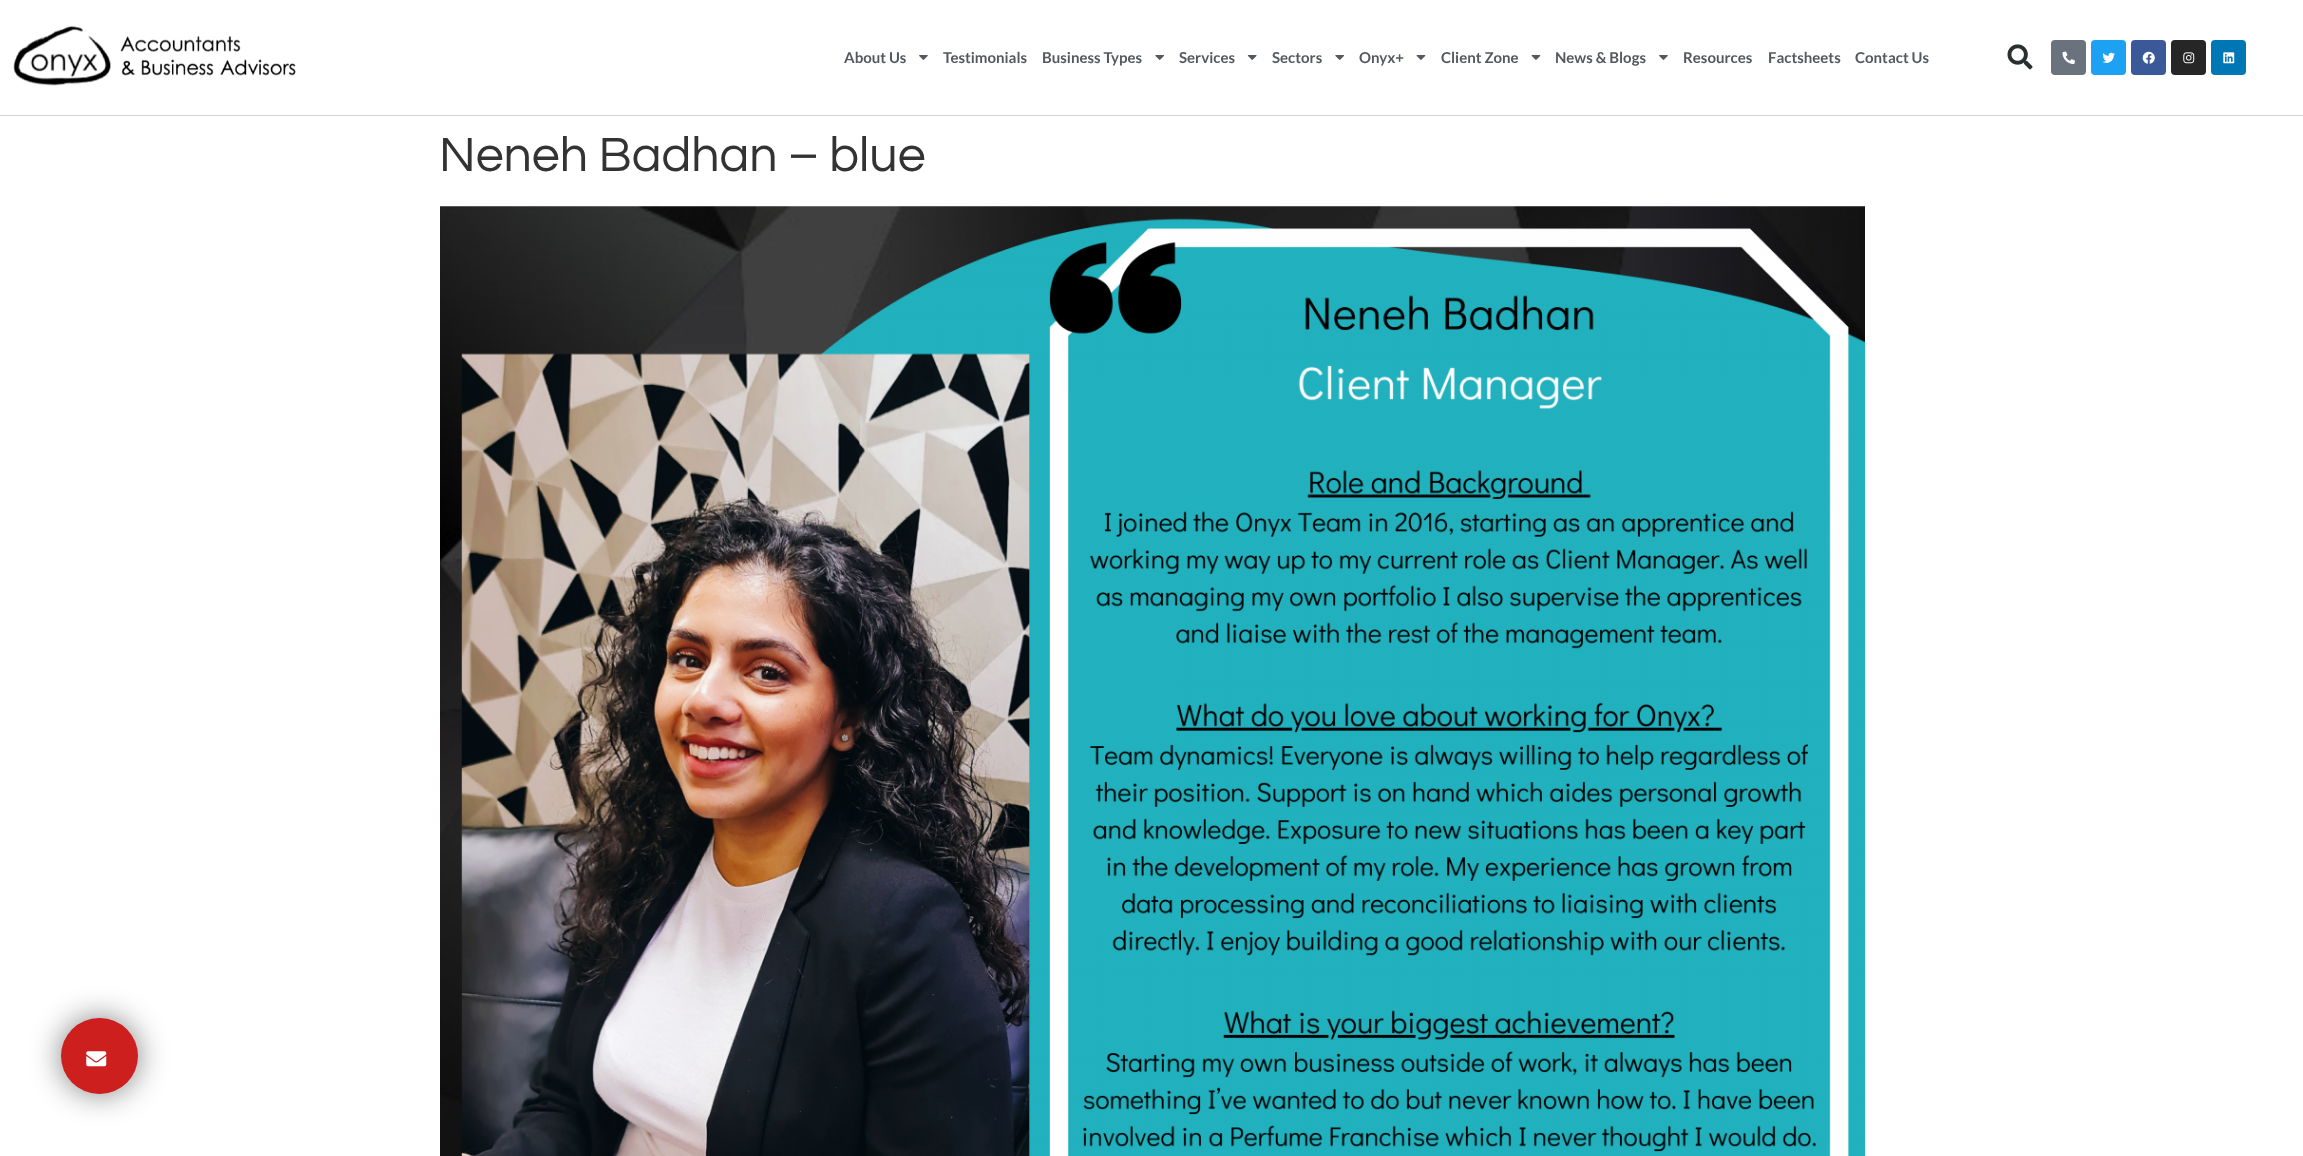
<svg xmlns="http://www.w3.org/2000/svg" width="2303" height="1156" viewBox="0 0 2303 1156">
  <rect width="100%" height="100%" fill="#fff"/>
  <path d="M0 115h2303v1H0z" fill="#d3d3d3"/>
  <image x="13" y="25" width="283" height="61" href="img/1.png"/>
  <image x="919" y="55" width="9" height="5" href="img/2.png"/>
  <image x="1155" y="55" width="9" height="5" href="img/3.png"/>
  <image x="1247" y="55" width="10" height="5" href="img/4.png"/>
  <image x="1335" y="55" width="9" height="5" href="img/3.png"/>
  <image x="1416" y="55" width="10" height="5" href="img/5.png"/>
  <image x="1531" y="55" width="10" height="5" href="img/5.png"/>
  <image x="1659" y="55" width="9" height="5" href="img/2.png"/>
  <image x="2007" y="44" width="26" height="26" href="img/6.png"/>
  <rect x="2051" y="40" width="35" height="35" rx="4" fill="#69727d"/>
  <image x="2062" y="51" width="13" height="14" href="img/7.png"/>
  <rect x="2091" y="40" width="35" height="35" rx="4" fill="#1da1f2"/>
  <image x="2102" y="52" width="13" height="11" href="img/8.png"/>
  <rect x="2131" y="40" width="35" height="35" rx="4" fill="#3b5998"/>
  <image x="2142" y="51" width="13" height="13" href="img/9.png"/>
  <rect x="2171" y="40" width="35" height="35" rx="4" fill="#262626"/>
  <image x="2183" y="52" width="12" height="12" href="img/10.png"/>
  <rect x="2211" y="40" width="35" height="35" rx="4" fill="#0077b5"/>
  <image x="2223" y="52" width="12" height="12" href="img/11.png"/>
  <image x="440" y="206" width="1425" height="950" href="img/12.png"/>
  <rect x="61" y="1018" width="77" height="76" rx="38" fill="#00000080" filter="blur(15.5px)"/>
  <rect x="61" y="1018" width="77" height="76" rx="38" fill="#ce1f1f"/>
  <image x="86" y="1051" width="21" height="16" href="img/13.png"/>
  <g font-family="Lato" font-size="15" font-weight="bold" fill="#54595f">
    <text x="844" y="63">About Us</text>
    <text x="943" y="63">Testimonials</text>
    <text x="1042" y="63">Business Types</text>
    <text x="1179" y="63">Services</text>
    <text x="1272" y="63">Sectors</text>
    <text x="1359" y="63">Onyx+</text>
    <text x="1441" y="63">Client Zone</text>
    <text x="1555" y="63">News &amp; Blogs</text>
    <text x="1683" y="63">Resources</text>
    <text x="1768" y="63">Factsheets</text>
    <text x="1855" y="63">Contact Us</text>
  </g>
  <text x="439" y="171" font-family="Questrial" font-size="50" fill="#333">Neneh Badhan – blue</text>
</svg>
